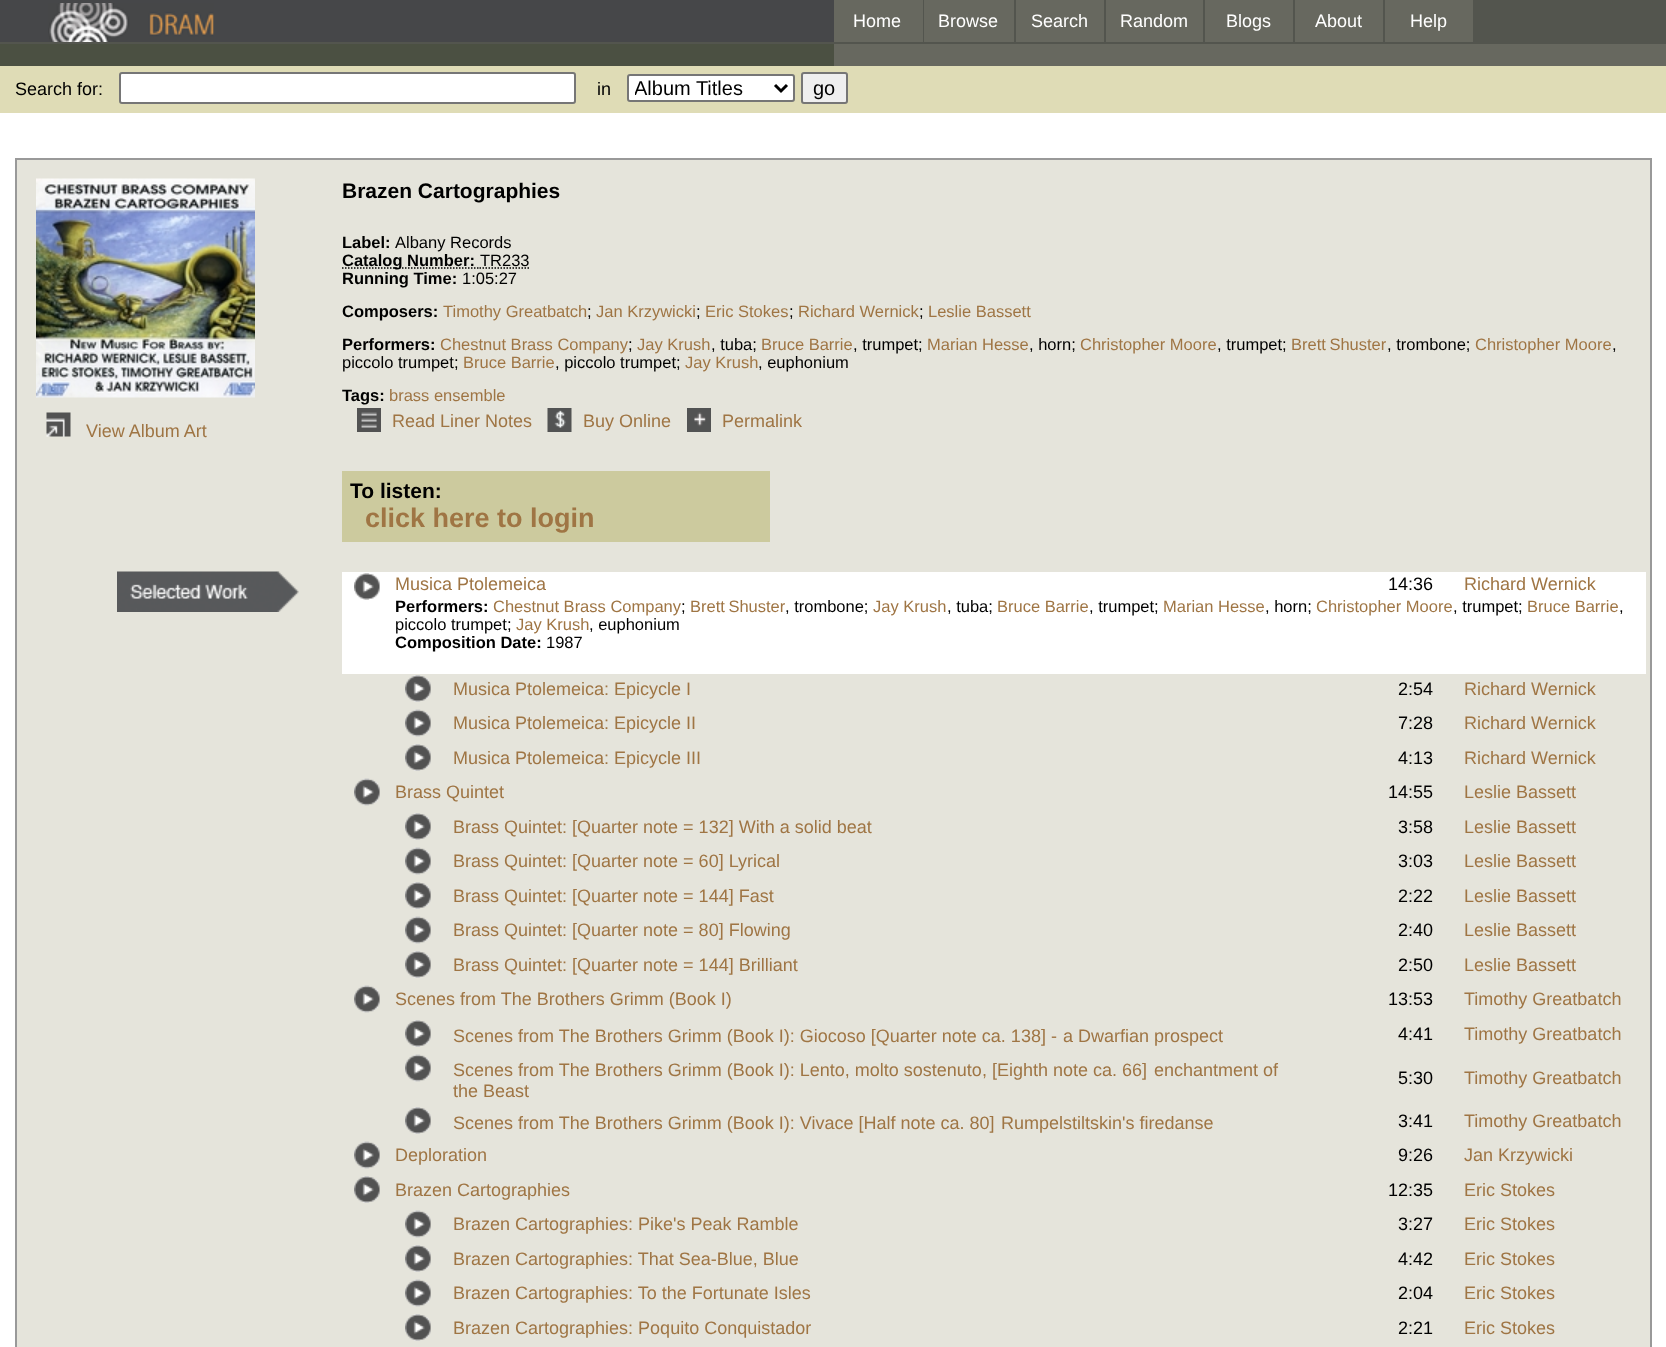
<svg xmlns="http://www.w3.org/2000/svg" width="1666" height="1347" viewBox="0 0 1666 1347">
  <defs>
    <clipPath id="clip1"><path d="M635 75h135v26H635z"/></clipPath>
  </defs>
  <rect width="100%" height="100%" fill="#464749"/>
  <image x="48" y="3" width="166" height="39" href="img/1.png"/>
  <path d="M923 0h743v42H923z" fill="#53554e"/>
  <path d="M834 0h89v42H834z" fill="#67685f"/>
  <path d="M924 0h90v42H924z" fill="#67685f"/>
  <path d="M1016 0h88v42H1016z" fill="#67685f"/>
  <path d="M1106 0h97v42H1106z" fill="#67685f"/>
  <path d="M1205 0h88v42H1205z" fill="#67685f"/>
  <path d="M1295 0h88v42H1295z" fill="#67685f"/>
  <path d="M1385 0h88v42H1385z" fill="#67685f"/>
  <path d="M834 44h832v22H834z" fill="#67685f"/>
  <path d="M0 42h1666v2H0z" fill="#53554e"/>
  <path d="M0 44h834v22H0z" fill="#4b5042"/>
  <path d="M0 66h1666v47H0z" fill="#dfdcb6"/>
  <rect x="120" y="73" width="455" height="30" rx="2" fill="#fff" stroke="#767676" stroke-width="2"/>
  <rect x="628" y="75" width="166" height="26" rx="2" fill="#fff" stroke="#767676" stroke-width="2"/>
  <path d="M775 85L781 91L787 85" fill="none" stroke="#000" stroke-width="3"/>
  <rect x="802" y="73" width="45" height="30" rx="2" fill="#efefef" stroke="#767676" stroke-width="2"/>
  <path d="M0 113h1666v1234H0z" fill="#fff"/>
  <path d="M16 159h1635v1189H16z" fill="#e5e4db" stroke="#999" stroke-width="2"/>
  <image x="36" y="178" width="219" height="220" href="img/2.png"/>
  <image x="46" y="412" width="25" height="25" href="img/3.png"/>
  <path d="M342 268H479.5" fill="none" stroke="#000" stroke-width="1.5" stroke-dasharray="1.5 1.5"/>
  <path d="M479.5 268H529" fill="none" stroke="#000" stroke-width="1.5" stroke-dasharray="1.5 1.5"/>
  <image x="357" y="408" width="24" height="24" href="img/4.png"/>
  <image x="547" y="408" width="25" height="24" href="img/5.png"/>
  <image x="687" y="408" width="24" height="24" href="img/6.png"/>
  <path d="M342 471h428v71H342z" fill="#ccca9e"/>
  <path d="M342 572h1304v102H342z" fill="#fff"/>
  <image x="354" y="573" width="26" height="27" href="img/7.png"/>
  <image x="405" y="675" width="26" height="27" href="img/8.png"/>
  <image x="405" y="709" width="26" height="28" href="img/9.png"/>
  <image x="405" y="744" width="26" height="27" href="img/8.png"/>
  <image x="354" y="778" width="26" height="28" href="img/9.png"/>
  <image x="405" y="813" width="26" height="27" href="img/8.png"/>
  <image x="405" y="847" width="26" height="28" href="img/9.png"/>
  <image x="405" y="882" width="26" height="27" href="img/8.png"/>
  <image x="405" y="916" width="26" height="28" href="img/9.png"/>
  <image x="405" y="951" width="26" height="27" href="img/8.png"/>
  <image x="354" y="985" width="26" height="28" href="img/9.png"/>
  <image x="405" y="1020" width="26" height="27" href="img/8.png"/>
  <image x="405" y="1054" width="26" height="28" href="img/9.png"/>
  <image x="405" y="1107" width="26" height="27" href="img/8.png"/>
  <image x="354" y="1141" width="26" height="28" href="img/9.png"/>
  <image x="354" y="1176" width="26" height="27" href="img/8.png"/>
  <image x="405" y="1210" width="26" height="28" href="img/9.png"/>
  <image x="405" y="1245" width="26" height="27" href="img/8.png"/>
  <image x="405" y="1279" width="26" height="28" href="img/9.png"/>
  <image x="405" y="1314" width="26" height="27" href="img/8.png"/>
  <image x="117" y="571" width="182" height="41" href="img/10.png"/>
  <g font-family="Liberation Sans" font-size="18" fill="#fff">
    <text x="853" y="27">Home</text>
    <text x="938" y="27">Browse</text>
    <text x="1031" y="27">Search</text>
    <text x="1120" y="27">Random</text>
    <text x="1226" y="27">Blogs</text>
    <text x="1315" y="27">About</text>
    <text x="1410" y="27">Help</text>
  </g>
  <g font-family="Liberation Sans" font-size="18" fill="#000">
    <text x="15" y="95">Search for:</text>
    <text x="597" y="95">in</text>
  </g>
  <g clip-path="url(#clip1)">
    <text x="634" y="95" font-family="Liberation Sans" font-size="20" fill="#000">Album Titles</text>
  </g>
  <text x="813" y="95" font-family="Liberation Sans" font-size="20" fill="#000">go</text>
  <text x="86" y="437" font-family="Liberation Sans" font-size="18" fill="#9f7544">View Album Art</text>
  <text x="342" y="198" font-family="Liberation Sans" font-size="21" font-weight="bold" fill="#000">Brazen Cartographies</text>
  <text x="342" y="248" font-family="Liberation Sans" font-size="16.5" font-weight="bold" fill="#000">Label:</text>
  <text x="395" y="248" font-family="Liberation Sans" font-size="16.5" fill="#000">Albany Records</text>
  <text x="342" y="266" font-family="Liberation Sans" font-size="16.5" font-weight="bold" fill="#000">Catalog Number:</text>
  <text x="480" y="266" font-family="Liberation Sans" font-size="16.5" fill="#000">TR233</text>
  <text x="342" y="284" font-family="Liberation Sans" font-size="16.5" font-weight="bold" fill="#000">Running Time:</text>
  <text x="462" y="284" font-family="Liberation Sans" font-size="16.5" fill="#000">1:05:27</text>
  <text x="342" y="317" font-family="Liberation Sans" font-size="16.5" font-weight="bold" fill="#000">Composers:</text>
  <text x="443" y="317" font-family="Liberation Sans" font-size="16.5" fill="#9f7544">Timothy Greatbatch</text>
  <text x="587" y="317" font-family="Liberation Sans" font-size="16.5" fill="#000">;</text>
  <text x="596" y="317" font-family="Liberation Sans" font-size="16.5" fill="#9f7544">Jan Krzywicki</text>
  <text x="696" y="317" font-family="Liberation Sans" font-size="16.5" fill="#000">;</text>
  <text x="705" y="317" font-family="Liberation Sans" font-size="16.5" fill="#9f7544">Eric Stokes</text>
  <text x="789" y="317" font-family="Liberation Sans" font-size="16.5" fill="#000">;</text>
  <text x="798" y="317" font-family="Liberation Sans" font-size="16.5" fill="#9f7544">Richard Wernick</text>
  <text x="919" y="317" font-family="Liberation Sans" font-size="16.5" fill="#000">;</text>
  <text x="928" y="317" font-family="Liberation Sans" font-size="16.5" fill="#9f7544">Leslie Bassett</text>
  <text x="342" y="350" font-family="Liberation Sans" font-size="16.5" font-weight="bold" fill="#000">Performers:</text>
  <text x="440" y="350" font-family="Liberation Sans" font-size="16.5" fill="#9f7544">Chestnut Brass Company</text>
  <text x="628" y="350" font-family="Liberation Sans" font-size="16.5" fill="#000">;</text>
  <text x="637" y="350" font-family="Liberation Sans" font-size="16.5" fill="#9f7544">Jay Krush</text>
  <text x="711" y="350" font-family="Liberation Sans" font-size="16.5" fill="#000">, tuba;</text>
  <text x="761" y="350" font-family="Liberation Sans" font-size="16.5" fill="#9f7544">Bruce Barrie</text>
  <text x="853" y="350" font-family="Liberation Sans" font-size="16.5" fill="#000">, trumpet;</text>
  <text x="927" y="350" font-family="Liberation Sans" font-size="16.5" fill="#9f7544">Marian Hesse</text>
  <text x="1029" y="350" font-family="Liberation Sans" font-size="16.5" fill="#000">, horn;</text>
  <text x="1080" y="350" font-family="Liberation Sans" font-size="16.5" fill="#9f7544">Christopher Moore</text>
  <text x="1217" y="350" font-family="Liberation Sans" font-size="16.5" fill="#000">, trumpet;</text>
  <text x="1291" y="350" word-spacing="-1" font-family="Liberation Sans" font-size="16.5" fill="#9f7544">Brett Shuster</text>
  <text x="1387" y="350" font-family="Liberation Sans" font-size="16.5" fill="#000">, trombone;</text>
  <text x="1475" y="350" font-family="Liberation Sans" font-size="16.5" fill="#9f7544">Christopher Moore</text>
  <g font-family="Liberation Sans" font-size="16.5" fill="#000">
    <text x="1612" y="350">,</text>
    <text x="342" y="368">piccolo trumpet;</text>
  </g>
  <text x="463" y="368" font-family="Liberation Sans" font-size="16.5" fill="#9f7544">Bruce Barrie</text>
  <text x="555" y="368" font-family="Liberation Sans" font-size="16.5" fill="#000">, piccolo trumpet;</text>
  <text x="685" y="368" font-family="Liberation Sans" font-size="16.5" fill="#9f7544">Jay Krush</text>
  <text x="758" y="368" font-family="Liberation Sans" font-size="16.5" fill="#000">, euphonium</text>
  <text x="342" y="401" font-family="Liberation Sans" font-size="16.5" font-weight="bold" fill="#000">Tags:</text>
  <text x="389" y="401" font-family="Liberation Sans" font-size="16.5" fill="#9f7544">brass ensemble</text>
  <g font-family="Liberation Sans" font-size="18" fill="#9f7544">
    <text x="392" y="427">Read Liner Notes</text>
    <text x="583" y="427">Buy Online</text>
    <text x="722" y="427">Permalink</text>
  </g>
  <text x="350" y="498" font-family="Liberation Sans" font-size="21" font-weight="bold" fill="#000">To listen:</text>
  <text x="365" y="527" font-family="Liberation Sans" font-size="27" font-weight="bold" fill="#9f7544">click here to login</text>
  <text x="395" y="590" font-family="Liberation Sans" font-size="18" fill="#9f7544">Musica Ptolemeica</text>
  <text x="1388" y="590" font-family="Liberation Sans" font-size="18" fill="#000">14:36</text>
  <text x="1464" y="590" font-family="Liberation Sans" font-size="18" fill="#9f7544">Richard Wernick</text>
  <text x="395" y="612" font-family="Liberation Sans" font-size="16.5" font-weight="bold" fill="#000">Performers:</text>
  <text x="493" y="612" font-family="Liberation Sans" font-size="16.5" fill="#9f7544">Chestnut Brass Company</text>
  <text x="681" y="612" font-family="Liberation Sans" font-size="16.5" fill="#000">;</text>
  <text x="690" y="612" word-spacing="-1" font-family="Liberation Sans" font-size="16.5" fill="#9f7544">Brett Shuster</text>
  <text x="785" y="612" font-family="Liberation Sans" font-size="16.5" fill="#000">, trombone;</text>
  <text x="873" y="612" font-family="Liberation Sans" font-size="16.5" fill="#9f7544">Jay Krush</text>
  <text x="947" y="612" font-family="Liberation Sans" font-size="16.5" fill="#000">, tuba;</text>
  <text x="997" y="612" font-family="Liberation Sans" font-size="16.5" fill="#9f7544">Bruce Barrie</text>
  <text x="1089" y="612" font-family="Liberation Sans" font-size="16.5" fill="#000">, trumpet;</text>
  <text x="1163" y="612" font-family="Liberation Sans" font-size="16.5" fill="#9f7544">Marian Hesse</text>
  <text x="1265" y="612" font-family="Liberation Sans" font-size="16.5" fill="#000">, horn;</text>
  <text x="1316" y="612" font-family="Liberation Sans" font-size="16.5" fill="#9f7544">Christopher Moore</text>
  <text x="1453" y="612" font-family="Liberation Sans" font-size="16.5" fill="#000">, trumpet;</text>
  <text x="1527" y="612" font-family="Liberation Sans" font-size="16.5" fill="#9f7544">Bruce Barrie</text>
  <g font-family="Liberation Sans" font-size="16.5" fill="#000">
    <text x="1619" y="612">,</text>
    <text x="395" y="630">piccolo trumpet;</text>
  </g>
  <text x="516" y="630" font-family="Liberation Sans" font-size="16.5" fill="#9f7544">Jay Krush</text>
  <text x="589" y="630" font-family="Liberation Sans" font-size="16.5" fill="#000">, euphonium</text>
  <text x="395" y="648" font-family="Liberation Sans" font-size="16.5" font-weight="bold" fill="#000">Composition Date:</text>
  <text x="546" y="648" font-family="Liberation Sans" font-size="16.5" fill="#000">1987</text>
  <text x="453" y="695" font-family="Liberation Sans" font-size="18" fill="#9f7544">Musica Ptolemeica: Epicycle I</text>
  <text x="1398" y="695" font-family="Liberation Sans" font-size="18" fill="#000">2:54</text>
  <g font-family="Liberation Sans" font-size="18" fill="#9f7544">
    <text x="1464" y="695">Richard Wernick</text>
    <text x="453" y="729">Musica Ptolemeica: Epicycle II</text>
  </g>
  <text x="1398" y="729" font-family="Liberation Sans" font-size="18" fill="#000">7:28</text>
  <g font-family="Liberation Sans" font-size="18" fill="#9f7544">
    <text x="1464" y="729">Richard Wernick</text>
    <text x="453" y="764">Musica Ptolemeica: Epicycle III</text>
  </g>
  <text x="1398" y="764" font-family="Liberation Sans" font-size="18" fill="#000">4:13</text>
  <g font-family="Liberation Sans" font-size="18" fill="#9f7544">
    <text x="1464" y="764">Richard Wernick</text>
    <text x="395" y="798">Brass Quintet</text>
  </g>
  <text x="1388" y="798" font-family="Liberation Sans" font-size="18" fill="#000">14:55</text>
  <g font-family="Liberation Sans" font-size="18" fill="#9f7544">
    <text x="1464" y="798">Leslie Bassett</text>
    <text x="453" y="833">Brass Quintet: [Quarter note = 132] With a solid beat</text>
  </g>
  <text x="1398" y="833" font-family="Liberation Sans" font-size="18" fill="#000">3:58</text>
  <g font-family="Liberation Sans" font-size="18" fill="#9f7544">
    <text x="1464" y="833">Leslie Bassett</text>
    <text x="453" y="867">Brass Quintet: [Quarter note = 60] Lyrical</text>
  </g>
  <text x="1398" y="867" font-family="Liberation Sans" font-size="18" fill="#000">3:03</text>
  <g font-family="Liberation Sans" font-size="18" fill="#9f7544">
    <text x="1464" y="867">Leslie Bassett</text>
    <text x="453" y="902">Brass Quintet: [Quarter note = 144] Fast</text>
  </g>
  <text x="1398" y="902" font-family="Liberation Sans" font-size="18" fill="#000">2:22</text>
  <g font-family="Liberation Sans" font-size="18" fill="#9f7544">
    <text x="1464" y="902">Leslie Bassett</text>
    <text x="453" y="936">Brass Quintet: [Quarter note = 80] Flowing</text>
  </g>
  <text x="1398" y="936" font-family="Liberation Sans" font-size="18" fill="#000">2:40</text>
  <g font-family="Liberation Sans" font-size="18" fill="#9f7544">
    <text x="1464" y="936">Leslie Bassett</text>
    <text x="453" y="971">Brass Quintet: [Quarter note = 144] Brilliant</text>
  </g>
  <text x="1398" y="971" font-family="Liberation Sans" font-size="18" fill="#000">2:50</text>
  <g font-family="Liberation Sans" font-size="18" fill="#9f7544">
    <text x="1464" y="971">Leslie Bassett</text>
    <text x="395" y="1005">Scenes from The Brothers Grimm (Book I)</text>
  </g>
  <text x="1388" y="1005" font-family="Liberation Sans" font-size="18" fill="#000">13:53</text>
  <g font-family="Liberation Sans" font-size="18" fill="#9f7544">
    <text x="1464" y="1005">Timothy Greatbatch</text>
    <text x="453" y="1042">Scenes from The Brothers Grimm (Book I): Giocoso [Quarter note ca. 138] -</text>
    <text x="1063" y="1042">a Dwarfian prospect</text>
  </g>
  <text x="1398" y="1040" font-family="Liberation Sans" font-size="18" fill="#000">4:41</text>
  <g font-family="Liberation Sans" font-size="18" fill="#9f7544">
    <text x="1464" y="1040">Timothy Greatbatch</text>
    <text x="453" y="1076">Scenes from The Brothers Grimm (Book I): Lento, molto sostenuto, [Eighth note ca. 66]</text>
    <text x="1154" y="1076">enchantment of</text>
    <text x="453" y="1097">the Beast</text>
  </g>
  <text x="1398" y="1084" font-family="Liberation Sans" font-size="18" fill="#000">5:30</text>
  <g font-family="Liberation Sans" font-size="18" fill="#9f7544">
    <text x="1464" y="1084">Timothy Greatbatch</text>
    <text x="453" y="1129">Scenes from The Brothers Grimm (Book I): Vivace [Half note ca. 80]</text>
    <text x="1001" y="1129">Rumpelstiltskin's firedanse</text>
  </g>
  <text x="1398" y="1127" font-family="Liberation Sans" font-size="18" fill="#000">3:41</text>
  <g font-family="Liberation Sans" font-size="18" fill="#9f7544">
    <text x="1464" y="1127">Timothy Greatbatch</text>
    <text x="395" y="1161">Deploration</text>
  </g>
  <text x="1398" y="1161" font-family="Liberation Sans" font-size="18" fill="#000">9:26</text>
  <g font-family="Liberation Sans" font-size="18" fill="#9f7544">
    <text x="1464" y="1161">Jan Krzywicki</text>
    <text x="395" y="1196">Brazen Cartographies</text>
  </g>
  <text x="1388" y="1196" font-family="Liberation Sans" font-size="18" fill="#000">12:35</text>
  <g font-family="Liberation Sans" font-size="18" fill="#9f7544">
    <text x="1464" y="1196">Eric Stokes</text>
    <text x="453" y="1230">Brazen Cartographies: Pike's Peak Ramble</text>
  </g>
  <text x="1398" y="1230" font-family="Liberation Sans" font-size="18" fill="#000">3:27</text>
  <g font-family="Liberation Sans" font-size="18" fill="#9f7544">
    <text x="1464" y="1230">Eric Stokes</text>
    <text x="453" y="1265">Brazen Cartographies: That Sea-Blue, Blue</text>
  </g>
  <text x="1398" y="1265" font-family="Liberation Sans" font-size="18" fill="#000">4:42</text>
  <g font-family="Liberation Sans" font-size="18" fill="#9f7544">
    <text x="1464" y="1265">Eric Stokes</text>
    <text x="453" y="1299">Brazen Cartographies: To the Fortunate Isles</text>
  </g>
  <text x="1398" y="1299" font-family="Liberation Sans" font-size="18" fill="#000">2:04</text>
  <g font-family="Liberation Sans" font-size="18" fill="#9f7544">
    <text x="1464" y="1299">Eric Stokes</text>
    <text x="453" y="1334">Brazen Cartographies: Poquito Conquistador</text>
  </g>
  <text x="1398" y="1334" font-family="Liberation Sans" font-size="18" fill="#000">2:21</text>
  <text x="1464" y="1334" font-family="Liberation Sans" font-size="18" fill="#9f7544">Eric Stokes</text>
</svg>
